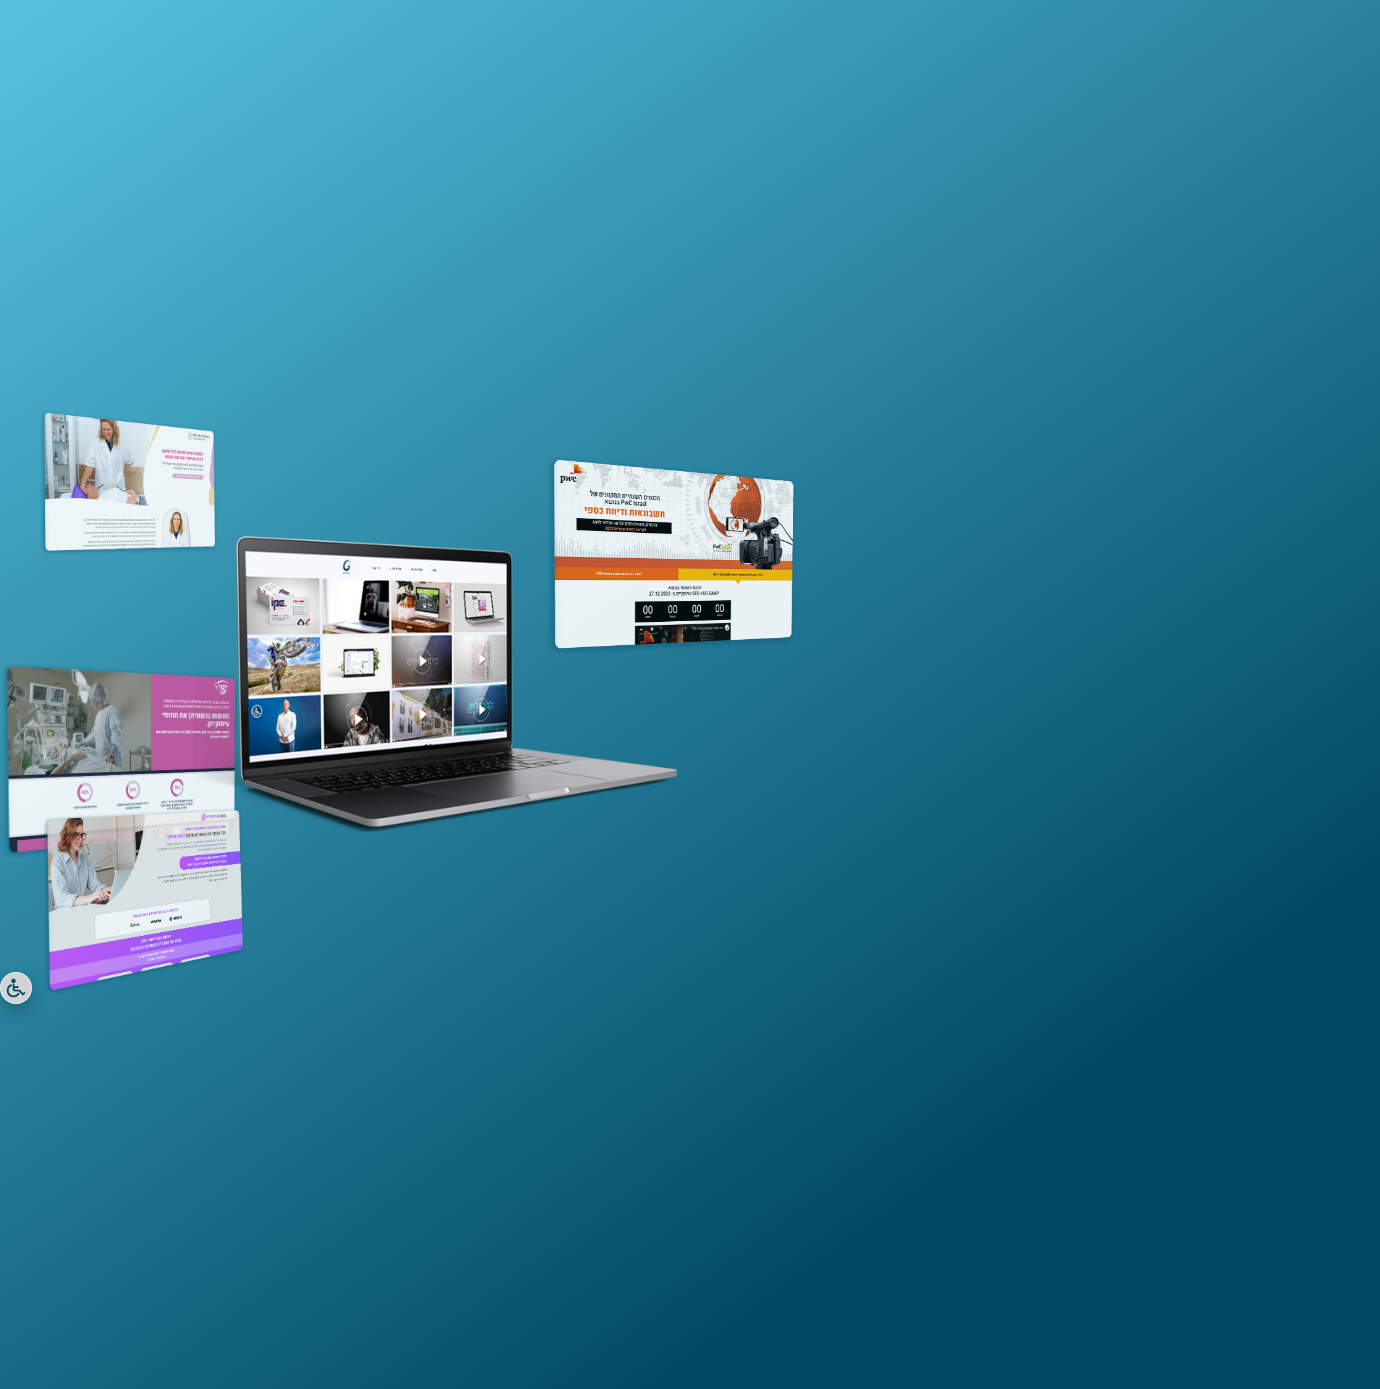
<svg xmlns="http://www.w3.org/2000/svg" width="1380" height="1389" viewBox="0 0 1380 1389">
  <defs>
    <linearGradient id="g1" gradientUnits="userSpaceOnUse" x1="121" y1="-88" x2="1259" y2="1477"><stop offset="0" stop-color="#58c3df"/><stop offset="0.78" stop-color="#014a66"/></linearGradient>
  </defs>
  <rect width="100%" height="100%" fill="#fff"/>
  <path d="M0 0h1380v1389H0z" fill="url(#g1)"/>
  <image x="40" y="411" width="177" height="144" href="img/1.png"/>
  <image x="2" y="664" width="235" height="193" href="img/3.png"/>
  <image x="194" y="536" width="483" height="297" href="img/4.png"/>
  <image x="548" y="457" width="248" height="197" href="img/2.png"/>
  <image x="43" y="808" width="201" height="186" href="img/5.png"/>
  <rect y="980" width="32" height="32" rx="16" fill="#00000038" filter="blur(8px)"/>
  <circle cx="16" cy="988" r="16" fill="#f4f7f9"/>
  <image x="0" y="972" width="32" height="32" href="img/6.png"/>
</svg>
